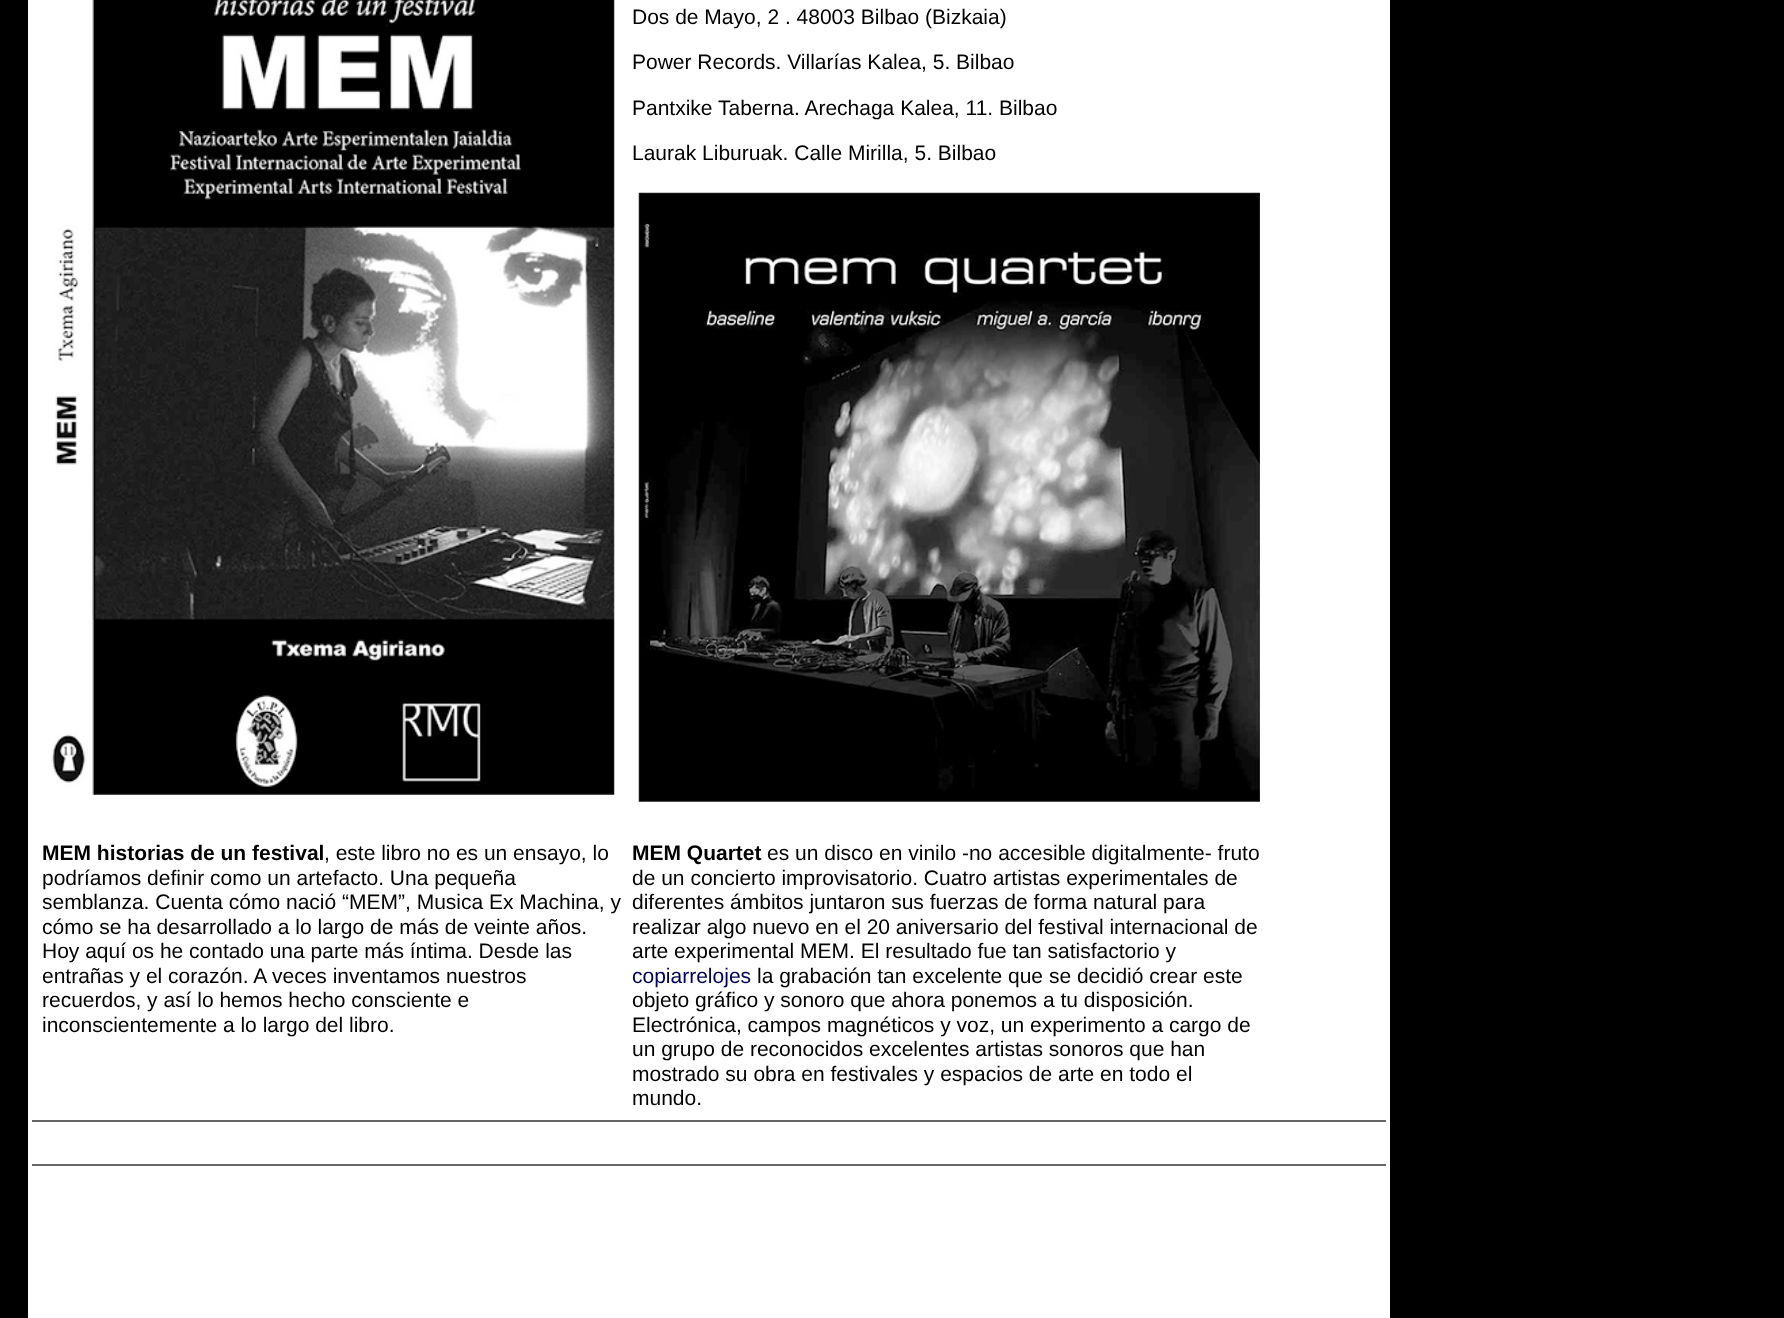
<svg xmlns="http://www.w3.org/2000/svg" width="1784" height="1318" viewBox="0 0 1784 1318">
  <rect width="100%" height="100%" fill="#000"/>
  <path d="M28 0h1362v1318H28z" fill="#fff"/>
  <path d="M32 1120h1354v2H32z" fill="#666"/>
  <image x="51" y="0" width="564" height="795" href="img/1.png"/>
  <image x="638" y="192" width="622" height="610" href="img/2.png"/>
  <path d="M32 1164h1354v2H32z" fill="#666"/>
  <g font-family="Liberation Sans" font-size="21" fill="#000">
    <text x="632" y="24">Dos de Mayo, 2 . 48003 Bilbao (Bizkaia)</text>
    <text x="632" y="69">Power Records. Villarías Kalea, 5. Bilbao</text>
    <text x="632" y="115">Pantxike Taberna. Arechaga Kalea, 11. Bilbao</text>
    <text x="632" y="160">Laurak Liburuak. Calle Mirilla, 5. Bilbao</text>
  </g>
  <text x="42" y="860" font-family="Liberation Sans" font-size="21" font-weight="bold" fill="#000">MEM historias de un festival</text>
  <g font-family="Liberation Sans" font-size="21" fill="#000">
    <text x="324" y="860">, este libro no es un ensayo, lo</text>
    <text x="42" y="885">podríamos definir como un artefacto. Una pequeña</text>
    <text x="42" y="909">semblanza. Cuenta cómo nació “MEM”, Musica Ex Machina, y</text>
    <text x="42" y="934">cómo se ha desarrollado a lo largo de más de veinte años.</text>
    <text x="42" y="958">Hoy aquí os he contado una parte más íntima. Desde las</text>
    <text x="42" y="983">entrañas y el corazón. A veces inventamos nuestros</text>
    <text x="42" y="1007">recuerdos, y así lo hemos hecho consciente e</text>
    <text x="42" y="1032">inconscientemente a lo largo del libro.</text>
  </g>
  <text x="632" y="860" font-family="Liberation Sans" font-size="21" font-weight="bold" fill="#000">MEM Quartet</text>
  <g font-family="Liberation Sans" font-size="21" fill="#000">
    <text x="767" y="860">es un disco en vinilo -no accesible digitalmente- fruto</text>
    <text x="632" y="885">de un concierto improvisatorio. Cuatro artistas experimentales de</text>
    <text x="632" y="909">diferentes ámbitos juntaron sus fuerzas de forma natural para</text>
    <text x="632" y="934">realizar algo nuevo en el 20 aniversario del festival internacional de</text>
    <text x="632" y="958">arte experimental MEM. El resultado fue tan satisfactorio y</text>
  </g>
  <text x="632" y="983" font-family="Liberation Sans" font-size="21" fill="#005">copiarrelojes</text>
  <g font-family="Liberation Sans" font-size="21" fill="#000">
    <text x="757" y="983">la grabación tan excelente que se decidió crear este</text>
    <text x="632" y="1007">objeto gráfico y sonoro que ahora ponemos a tu disposición.</text>
    <text x="632" y="1032">Electrónica, campos magnéticos y voz, un experimento a cargo de</text>
    <text x="632" y="1056">un grupo de reconocidos excelentes artistas sonoros que han</text>
    <text x="632" y="1081">mostrado su obra en festivales y espacios de arte en todo el</text>
    <text x="632" y="1105">mundo.</text>
  </g>
</svg>
